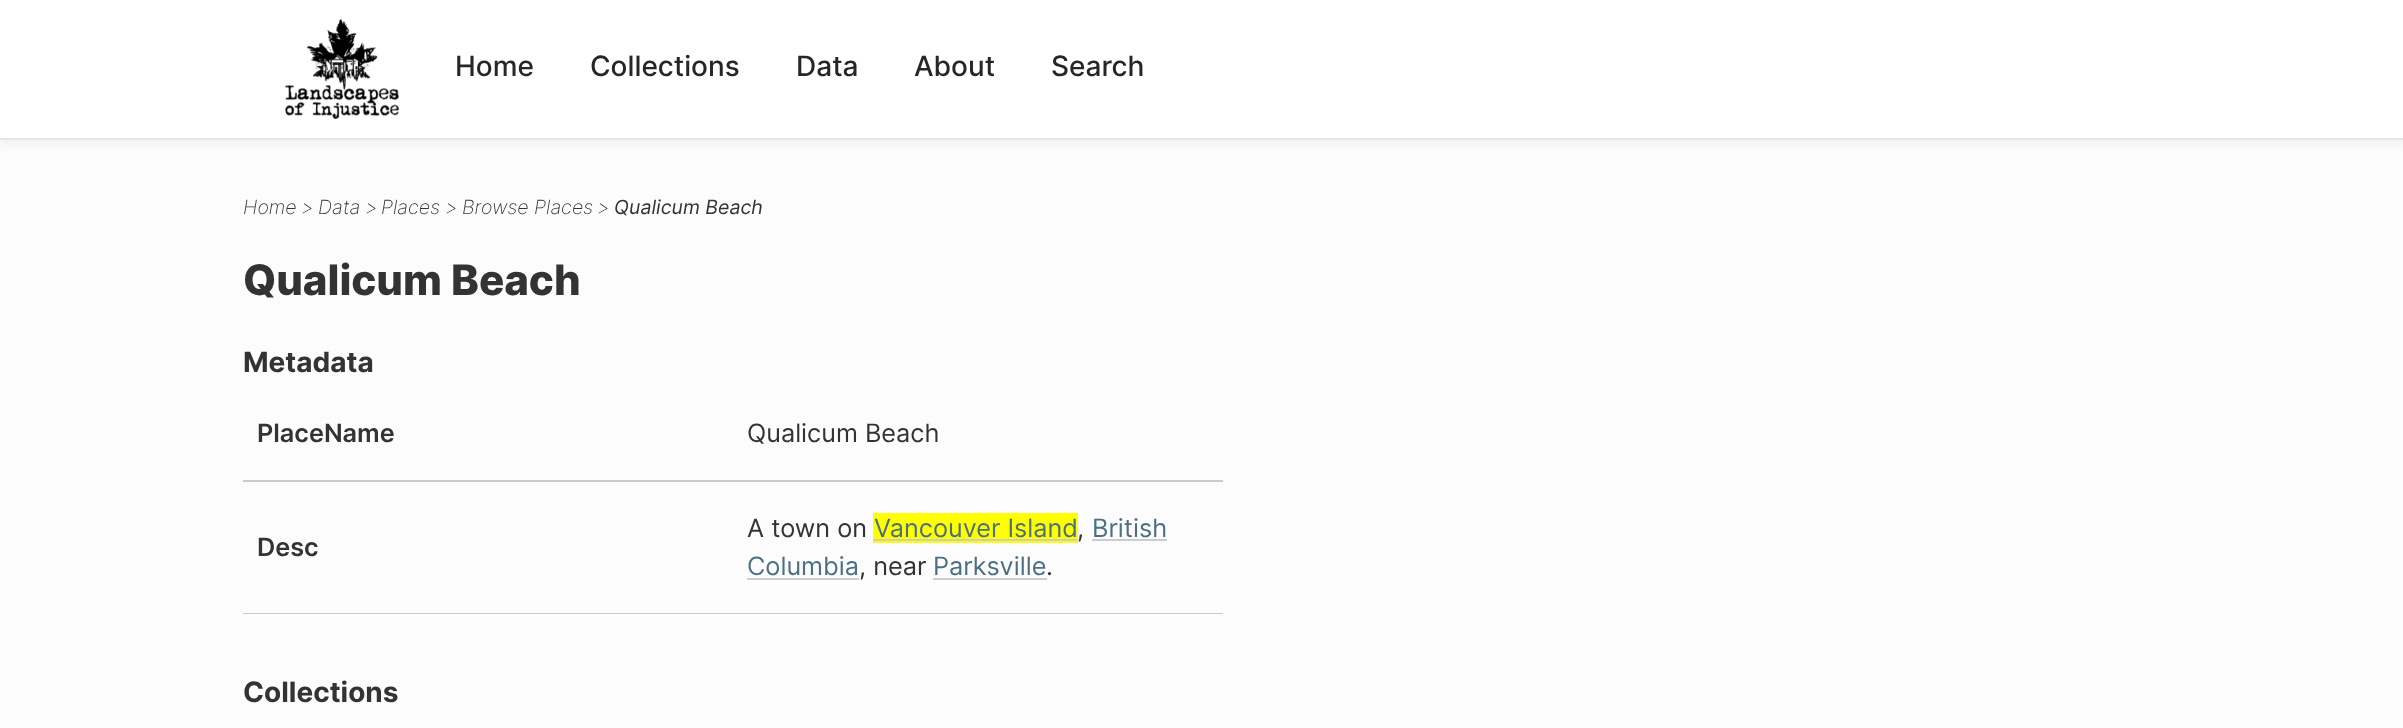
<svg xmlns="http://www.w3.org/2000/svg" width="2403" height="728" viewBox="0 0 2403 728">
  <rect width="100%" height="100%" fill="#fcfcfc"/>
  <path d="M0 4h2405v140H0z" fill="#0000000d" filter="blur(4.5px)"/>
  <path d="M0 0h2403v138H0z" fill="#fff"/>
  <path d="M0 138h2403v2H0z" fill="#e6e6e6"/>
  <image x="285" y="19" width="114" height="100" href="img/1.png"/>
  <path d="M243 480h980v2H243z" fill="#cacaca"/>
  <path d="M243 613h980v1H243z" fill="#cacaca"/>
  <path d="M873 513h205v30H873z" fill="#ff0"/>
  <path d="M873 539h205v2H873z" fill="#ccc"/>
  <path d="M1092 539h75v2H1092z" fill="#ccc"/>
  <path d="M747 578h112v2H747z" fill="#ccc"/>
  <path d="M933 578h114v2H933z" fill="#ccc"/>
  <g font-family="Inter" font-size="28" font-weight="500" fill="#262626">
    <text x="455" y="76">Home</text>
    <text x="590" y="76">Collections</text>
    <text x="796" y="76">Data</text>
    <text x="914" y="76">About</text>
    <text x="1051" y="76">Search</text>
  </g>
  <g font-family="Inter" font-size="19.5" font-weight="200" font-style="italic" fill="#333">
    <text x="243" y="214">Home</text>
    <text x="301" y="214">&gt;</text>
    <text x="318" y="214">Data</text>
    <text x="365" y="214">&gt;</text>
    <text x="381" y="214">Places</text>
    <text x="445" y="214">&gt;</text>
    <text x="462" y="214">Browse Places</text>
    <text x="597" y="214">&gt;</text>
  </g>
  <text x="614" y="214" font-family="Inter" font-size="19.5" font-style="italic" fill="#333">Qualicum Beach</text>
  <text x="243" y="295" font-family="Inter" font-size="42" font-weight="800" fill="#333">Qualicum Beach</text>
  <text x="243" y="372" font-family="Inter" font-size="28" font-weight="bold" fill="#333">Metadata</text>
  <text x="257" y="442" font-family="Inter" font-size="25.25" font-weight="600" fill="#333">PlaceName</text>
  <text x="747" y="442" font-family="Inter" font-size="25.25" fill="#333">Qualicum Beach</text>
  <text x="257" y="556" font-family="Inter" font-size="25.25" font-weight="600" fill="#333">Desc</text>
  <text x="747" y="537" font-family="Inter" font-size="25.25" fill="#333">A town on</text>
  <text x="874" y="537" font-family="Inter" font-size="25.25" fill="#4a7084">Vancouver Island</text>
  <text x="1077" y="537" font-family="Inter" font-size="25.25" fill="#333">,</text>
  <g font-family="Inter" font-size="25.25" fill="#4a7084">
    <text x="1092" y="537">British</text>
    <text x="747" y="575">Columbia</text>
  </g>
  <text x="859" y="575" font-family="Inter" font-size="25.25" fill="#333">, near</text>
  <text x="933" y="575" font-family="Inter" font-size="25.25" fill="#4a7084">Parksville</text>
  <text x="1046" y="575" font-family="Inter" font-size="25.25" fill="#333">.</text>
  <text x="243" y="702" font-family="Inter" font-size="28" font-weight="bold" fill="#333">Collections</text>
</svg>
